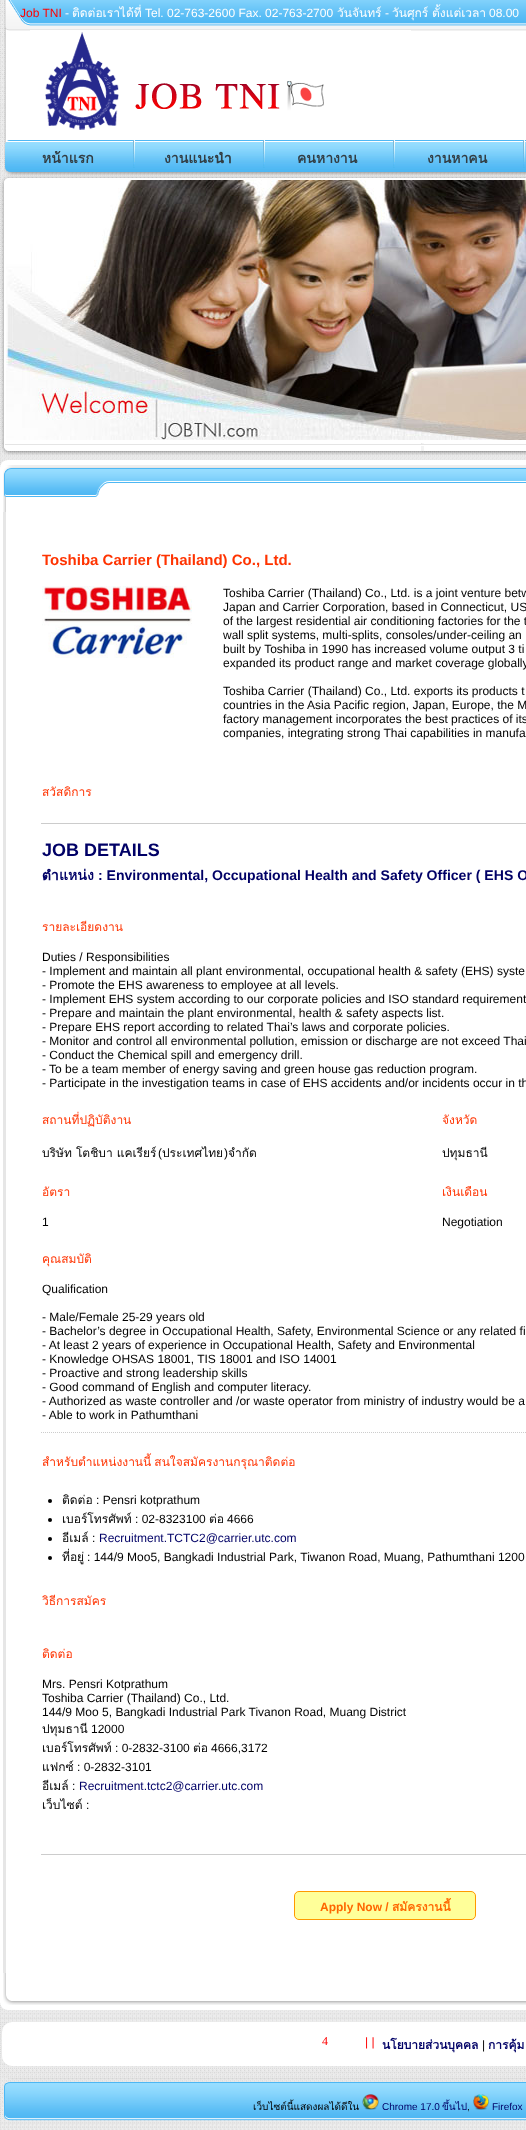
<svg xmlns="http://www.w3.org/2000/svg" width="526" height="2130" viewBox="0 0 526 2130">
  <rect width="100%" height="100%" fill="#fff"/>
  <image x="0" y="0" width="526" height="2130" href="img/1.png"/>
  <image x="4" y="0" width="522" height="175" href="img/2.png"/>
  <image x="30" y="30" width="381" height="100" href="img/3.png"/>
  <image x="5" y="140" width="521" height="32" href="img/4.png"/>
  <image x="133" y="140" width="2" height="28" href="img/5.png"/>
  <image x="263" y="140" width="2" height="28" href="img/5.png"/>
  <image x="393" y="140" width="2" height="28" href="img/5.png"/>
  <image x="523" y="140" width="2" height="28" href="img/5.png"/>
  <image x="1" y="175" width="525" height="280" href="img/6.png"/>
  <image x="6" y="180" width="520" height="260" href="img/7.png"/>
  <rect y="460" width="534" height="1550" rx="8" fill="#fff"/>
  <image x="3" y="465" width="523" height="47" href="img/8.png"/>
  <path d="M3 512h3v1461H3z" fill="#e6e6e6"/>
  <image x="42" y="586" width="150" height="72" href="img/9.png"/>
  <path d="M41 823h485v1H41z" fill="#ccc"/>
  <path d="M41 1432.5H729" fill="none" stroke="#ccc" stroke-dasharray="1 1"/>
  <circle cx="50" cy="1501" r="2" fill="#000"/>
  <circle cx="50" cy="1520" r="2" fill="#000"/>
  <circle cx="50" cy="1539" r="2" fill="#000"/>
  <circle cx="50" cy="1558" r="2" fill="#000"/>
  <path d="M41 1854h485v1H41z" fill="#ccc"/>
  <rect x="294.5" y="1891.5" width="181" height="28" rx="4.5" fill="#ff9" stroke="#f90"/>
  <image x="3" y="1973" width="523" height="32" href="img/10.png"/>
  <rect x="2" y="2022" width="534" height="44" rx="10" fill="#fff"/>
  <image x="4" y="2078" width="522" height="43" href="img/11.png"/>
  <image x="362" y="2094" width="17" height="16" href="img/12.png"/>
  <image x="473" y="2094" width="16" height="16" href="img/13.png"/>
  <text x="20" y="17" font-family="Liberation Sans" font-size="12" fill="#f00">Job TNI</text>
  <text x="145" y="17" font-family="Liberation Sans" font-size="12" fill="#fff">Tel. 02-763-2600 Fax. 02-763-2700</text>
  <text x="337" y="17" font-family="Loma" font-size="12" fill="#fff">วันจันทร์</text>
  <g font-family="Liberation Sans" font-size="12" fill="#fff">
    <text x="489" y="17">08.00</text>
    <text x="65" y="17">-</text>
  </g>
  <text x="72" y="17" font-family="Loma" font-size="12" fill="#fff">ติดต่อเราได้ที่</text>
  <text x="385" y="17" font-family="Liberation Sans" font-size="12" fill="#fff">-</text>
  <g font-family="Loma" font-size="12" fill="#fff">
    <text x="392" y="17">วันศุกร์</text>
    <text x="432" y="17">ตั้งแต่เวลา</text>
  </g>
  <g font-family="Loma" font-size="14" font-weight="bold" fill="#323d43">
    <text x="42" y="163">หน้าแรก</text>
    <text x="164" y="163">งานแนะนำ</text>
    <text x="297" y="163">คนหางาน</text>
    <text x="427" y="163">งานหาคน</text>
  </g>
  <text x="42" y="565" font-family="Liberation Sans" font-size="15" font-weight="bold" fill="#f30">Toshiba Carrier (Thailand) Co., Ltd.</text>
  <g font-family="Liberation Sans" font-size="12" fill="#000">
    <text x="223" y="597">Toshiba Carrier (Thailand) Co., Ltd. is a joint venture betw</text>
    <text x="223" y="611">Japan and Carrier Corporation, based in Connecticut, US</text>
    <text x="223" y="625">of the largest residential air conditioning factories for the t</text>
    <text x="223" y="639">wall split systems, multi-splits, consoles/under-ceiling an</text>
    <text x="223" y="653">built by Toshiba in 1990 has increased volume output 3 ti</text>
    <text x="223" y="667">expanded its product range and market coverage globally</text>
    <text x="223" y="695">Toshiba Carrier (Thailand) Co., Ltd. exports its products t</text>
    <text x="223" y="709">countries in the Asia Pacific region, Japan, Europe, the M</text>
    <text x="223" y="723">factory management incorporates the best practices of its</text>
    <text x="223" y="737">companies, integrating strong Thai capabilities in manufa</text>
  </g>
  <text x="42" y="796" font-family="Loma" font-size="12" fill="#f30">สวัสดิการ</text>
  <text x="42" y="856" font-family="Liberation Sans" font-size="18" font-weight="bold" fill="#006">JOB DETAILS</text>
  <text x="42" y="880" font-family="Loma" font-size="14.05" font-weight="bold" fill="#006">ตำแหน่ง</text>
  <text x="98" y="880" font-family="Liberation Sans" font-size="14.05" font-weight="bold" fill="#006">: Environmental, Occupational Health and Safety Officer ( EHS O</text>
  <text x="42" y="931" font-family="Loma" font-size="12" fill="#f30">รายละเอียดงาน</text>
  <g font-family="Liberation Sans" font-size="12" fill="#000">
    <text x="42" y="961">Duties / Responsibilities</text>
    <text x="42" y="975">- Implement and maintain all plant environmental, occupational health &amp; safety (EHS) syste</text>
    <text x="42" y="989">- Promote the EHS awareness to employee at all levels.</text>
    <text x="42" y="1003">- Implement EHS system according to our corporate policies and ISO standard requirement</text>
    <text x="42" y="1017">- Prepare and maintain the plant environmental, health &amp; safety aspects list.</text>
    <text x="42" y="1031">- Prepare EHS report according to related Thai’s laws and corporate policies.</text>
    <text x="42" y="1045">- Monitor and control all environmental pollution, emission or discharge are not exceed Thai</text>
    <text x="42" y="1059">- Conduct the Chemical spill and emergency drill.</text>
    <text x="42" y="1073">- To be a team member of energy saving and green house gas reduction program.</text>
    <text x="42" y="1087">- Participate in the investigation teams in case of EHS accidents and/or incidents occur in th</text>
  </g>
  <text x="42" y="1124" font-family="Loma" font-size="12" fill="#f30">สถานที่ปฏิบัติงาน</text>
  <text x="42" y="1157" font-family="Loma" font-size="12" fill="#000">บริษัท โตชิบา แคเรียร์</text>
  <text x="158" y="1157" font-family="Liberation Sans" font-size="12" fill="#000">(</text>
  <text x="162" y="1157" font-family="Loma" font-size="12" fill="#000">ประเทศไทย</text>
  <text x="224" y="1157" font-family="Liberation Sans" font-size="12" fill="#000">)</text>
  <text x="228" y="1157" font-family="Loma" font-size="12" fill="#000">จำกัด</text>
  <text x="442" y="1124" font-family="Loma" font-size="12" fill="#f30">จังหวัด</text>
  <text x="442" y="1157" font-family="Loma" font-size="12" fill="#000">ปทุมธานี</text>
  <text x="42" y="1196" font-family="Loma" font-size="12" fill="#f30">อัตรา</text>
  <text x="42" y="1226" font-family="Liberation Sans" font-size="12" fill="#000">1</text>
  <text x="442" y="1196" font-family="Loma" font-size="12" fill="#f30">เงินเดือน</text>
  <text x="442" y="1226" font-family="Liberation Sans" font-size="12" fill="#000">Negotiation</text>
  <text x="42" y="1263" font-family="Loma" font-size="12" fill="#f30">คุณสมบัติ</text>
  <g font-family="Liberation Sans" font-size="12" fill="#000">
    <text x="42" y="1293">Qualification</text>
    <text x="42" y="1321">- Male/Female 25-29 years old</text>
    <text x="42" y="1335">- Bachelor’s degree in Occupational Health, Safety, Environmental Science or any related fi</text>
    <text x="42" y="1349">- At least 2 years of experience in Occupational Health, Safety and Environmental</text>
    <text x="42" y="1363">- Knowledge OHSAS 18001, TIS 18001 and ISO 14001</text>
    <text x="42" y="1377">- Proactive and strong leadership skills</text>
    <text x="42" y="1391">- Good command of English and computer literacy.</text>
    <text x="42" y="1405">- Authorized as waste controller and /or waste operator from ministry of industry would be a</text>
    <text x="42" y="1419">- Able to work in Pathumthani</text>
  </g>
  <text x="42" y="1466" word-spacing="-1" font-family="Loma" font-size="12" fill="#f30">สำหรับตำแหน่งงานนี้ สนใจสมัครงานกรุณาติดต่อ</text>
  <text x="62" y="1504" font-family="Loma" font-size="12" fill="#000">ติดต่อ</text>
  <text x="96" y="1504" font-family="Liberation Sans" font-size="12" fill="#000">: Pensri kotprathum</text>
  <text x="62" y="1523" font-family="Loma" font-size="12" fill="#000">เบอร์โทรศัพท์</text>
  <text x="135" y="1523" font-family="Liberation Sans" font-size="12" fill="#000">: 02-8323100</text>
  <text x="209" y="1523" font-family="Loma" font-size="12" fill="#000">ต่อ</text>
  <text x="227" y="1523" font-family="Liberation Sans" font-size="12" fill="#000">4666</text>
  <text x="62" y="1542" font-family="Loma" font-size="12" fill="#000">อีเมล์</text>
  <text x="92" y="1542" font-family="Liberation Sans" font-size="12" fill="#000">:</text>
  <text x="99" y="1542" font-family="Liberation Sans" font-size="12" fill="#006">Recruitment.TCTC2@carrier.utc.com</text>
  <text x="62" y="1561" font-family="Loma" font-size="12" fill="#000">ที่อยู่</text>
  <text x="87" y="1561" font-family="Liberation Sans" font-size="12" fill="#000">: 144/9 Moo5, Bangkadi Industrial Park, Tiwanon Road, Muang, Pathumthani 1200</text>
  <g font-family="Loma" font-size="12" fill="#f30">
    <text x="42" y="1605">วิธีการสมัคร</text>
    <text x="42" y="1658">ติดต่อ</text>
  </g>
  <g font-family="Liberation Sans" font-size="12" fill="#000">
    <text x="42" y="1688">Mrs. Pensri Kotprathum</text>
    <text x="42" y="1702">Toshiba Carrier (Thailand) Co., Ltd.</text>
    <text x="42" y="1716">144/9 Moo 5, Bangkadi Industrial Park Tivanon Road, Muang District</text>
  </g>
  <text x="42" y="1733" font-family="Loma" font-size="12" fill="#000">ปทุมธานี</text>
  <text x="91" y="1733" font-family="Liberation Sans" font-size="12" fill="#000">12000</text>
  <text x="42" y="1752" font-family="Loma" font-size="12" fill="#000">เบอร์โทรศัพท์</text>
  <text x="115" y="1752" font-family="Liberation Sans" font-size="12" fill="#000">: 0-2832-3100</text>
  <text x="193" y="1752" font-family="Loma" font-size="12" fill="#000">ต่อ</text>
  <text x="211" y="1752" font-family="Liberation Sans" font-size="12" fill="#000">4666,3172</text>
  <text x="42" y="1771" font-family="Loma" font-size="12" fill="#000">แฟกซ์</text>
  <text x="77" y="1771" font-family="Liberation Sans" font-size="12" fill="#000">: 0-2832-3101</text>
  <text x="42" y="1790" font-family="Loma" font-size="12" fill="#000">อีเมล์</text>
  <text x="72" y="1790" font-family="Liberation Sans" font-size="12" fill="#000">:</text>
  <text x="79" y="1790" font-family="Liberation Sans" font-size="12" fill="#006">Recruitment.tctc2@carrier.utc.com</text>
  <text x="42" y="1809" font-family="Loma" font-size="12" fill="#000">เว็บไซต์</text>
  <text x="86" y="1809" font-family="Liberation Sans" font-size="12" fill="#000">:</text>
  <text x="320" y="1911" font-family="Liberation Sans" font-size="12" font-weight="bold" fill="#f60">Apply Now /</text>
  <text x="392" y="1911" font-family="Loma" font-size="12" font-weight="bold" fill="#f60">สมัครงานนี้</text>
  <text x="322" y="2045" font-family="Liberation Serif" font-size="12" fill="#f00">4</text>
  <text x="365" y="2046" font-family="Liberation Sans" font-size="12" fill="#f00">| |</text>
  <text x="382" y="2049" font-family="Loma" font-size="12" font-weight="bold" fill="#006">นโยบายส่วนบุคคล</text>
  <text x="482" y="2049" font-family="Liberation Sans" font-size="12" fill="#000">|</text>
  <text x="488" y="2049" font-family="Loma" font-size="12" font-weight="bold" fill="#006">การคุ้ม</text>
  <text x="253" y="2110" font-family="Loma" font-size="10" fill="#000">เว็บไซต์นี้แสดงผลได้ดีใน</text>
  <text x="382" y="2110" font-family="Liberation Sans" font-size="10" fill="#006">Chrome 17.0</text>
  <text x="442" y="2110" font-family="Loma" font-size="10" fill="#006">ขึ้นไป</text>
  <text x="467" y="2110" font-family="Liberation Sans" font-size="10" fill="#000">,</text>
  <text x="492" y="2110" font-family="Liberation Sans" font-size="10" fill="#006">Firefox</text>
</svg>
